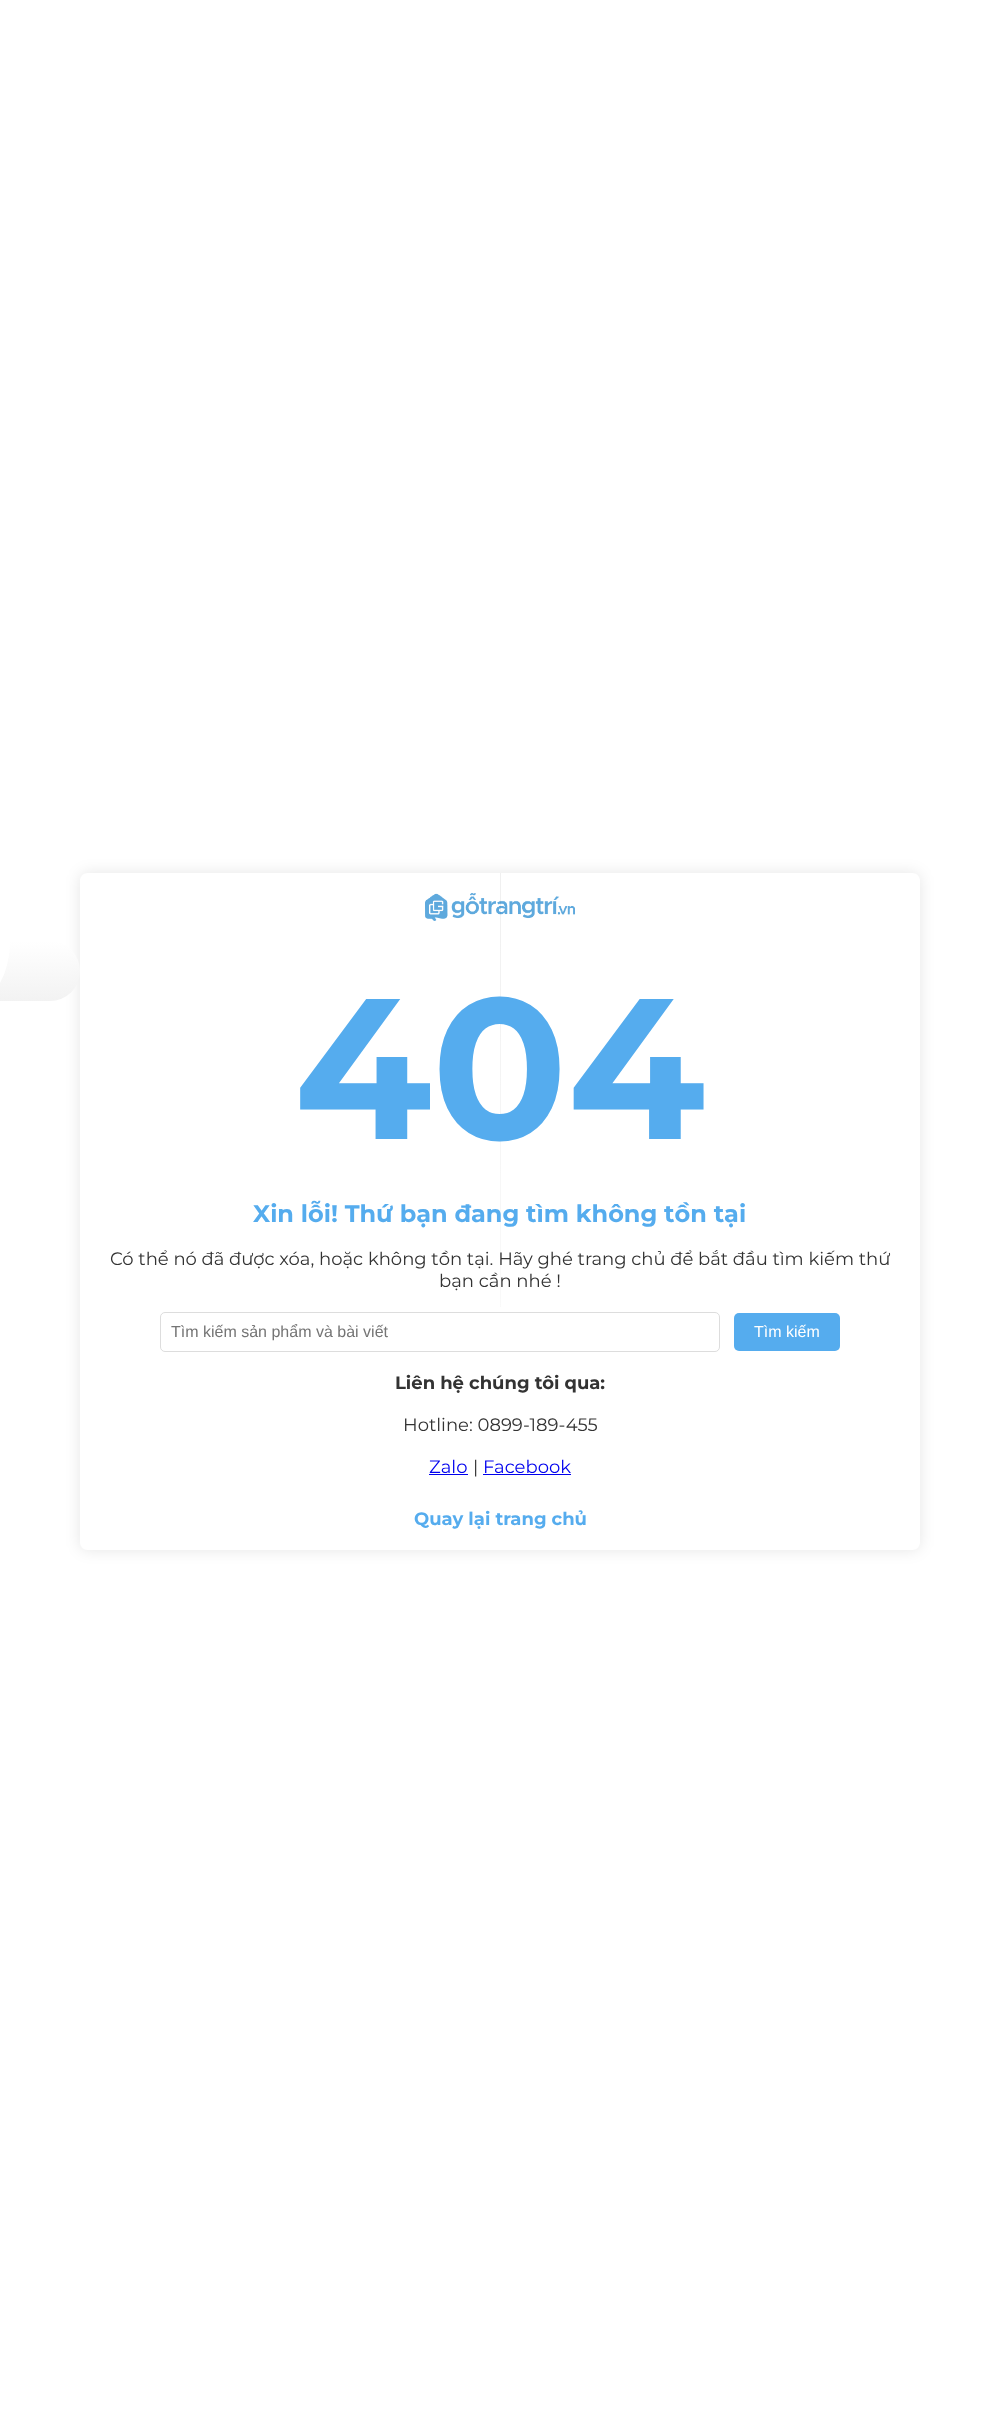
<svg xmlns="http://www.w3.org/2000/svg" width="1000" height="2423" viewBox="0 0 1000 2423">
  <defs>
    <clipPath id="clip1"><path d="M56 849H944V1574H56ZM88 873H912C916.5 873 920 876.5 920 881V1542C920 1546.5 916.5 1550 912 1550H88C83.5 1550 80 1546.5 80 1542V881C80 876.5 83.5 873 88 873Z" clip-rule="evenodd"/></clipPath>
    <linearGradient id="g1" gradientUnits="userSpaceOnUse" x1="-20" y1="941" x2="-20" y2="1001"><stop offset="0" stop-color="#fff" stop-opacity="0.9"/><stop offset="1" stop-color="#f1f1f1" stop-opacity="0.9"/></linearGradient>
    <linearGradient id="g2" gradientUnits="userSpaceOnUse" x1="500" y1="873" x2="501" y2="1550"><stop offset="0" stop-color="#000" stop-opacity="0.06"/><stop offset="1" stop-color="#000" stop-opacity="0"/></linearGradient>
  </defs>
  <rect width="100%" height="100%" fill="#fff"/>
  <g clip-path="url(#clip1)">
    <rect x="80" y="873" width="840" height="677" rx="8" fill="#0000001a" filter="blur(7.5px)"/>
  </g>
  <rect x="-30" y="941" width="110" height="60" rx="30" fill="url(#g1)"/>
  <rect x="-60" y="881" width="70" height="120" rx="60" fill="#fff"/>
  <image x="425" y="893" width="150" height="28" href="img/1.png"/>
  <path d="M500 873h1v434H500z" fill="url(#g2)"/>
  <rect x="160.5" y="1312.5" width="559" height="39" rx="4.5" fill="none" stroke="#ddd"/>
  <rect x="734" y="1313" width="106" height="38" rx="5" fill="#55acee"/>
  <path d="M429 1474h39v1H429z" fill="#00e"/>
  <path d="M483 1474h88v1H483z" fill="#00e"/>
  <text x="294" y="1139" font-family="Montserrat" font-size="200" font-weight="bold" fill="#55acee">404</text>
  <text x="253" y="1222" font-family="Montserrat" font-size="24" font-weight="bold" fill="#55acee">Xin lỗi! Thứ bạn đang tìm không tồn tại</text>
  <g font-family="Montserrat" font-size="18" fill="#333">
    <text x="110" y="1265">Có thể nó đã được xóa, hoặc không tồn tại. Hãy ghé trang chủ để bắt đầu tìm kiếm thứ</text>
    <text x="439" y="1287">bạn cần nhé !</text>
  </g>
  <text x="171" y="1337" font-family="Liberation Sans" font-size="16" fill="#757575">Tìm kiếm sản phẩm và bài viết</text>
  <text x="754" y="1337" font-family="Liberation Sans" font-size="16" fill="#fff">Tìm kiếm</text>
  <text x="395" y="1389" font-family="Montserrat" font-size="18" font-weight="bold" fill="#333">Liên hệ chúng tôi qua:</text>
  <text x="403" y="1431" font-family="Montserrat" font-size="18" fill="#333">Hotline: 0899-189-455</text>
  <text x="429" y="1473" font-family="Montserrat" font-size="18" fill="#00e">Zalo</text>
  <text x="473" y="1473" font-family="Montserrat" font-size="18" fill="#333">|</text>
  <text x="483" y="1473" font-family="Montserrat" font-size="18" fill="#00e">Facebook</text>
  <text x="414" y="1525" font-family="Montserrat" font-size="18" font-weight="bold" fill="#55acee">Quay lại trang chủ</text>
</svg>
